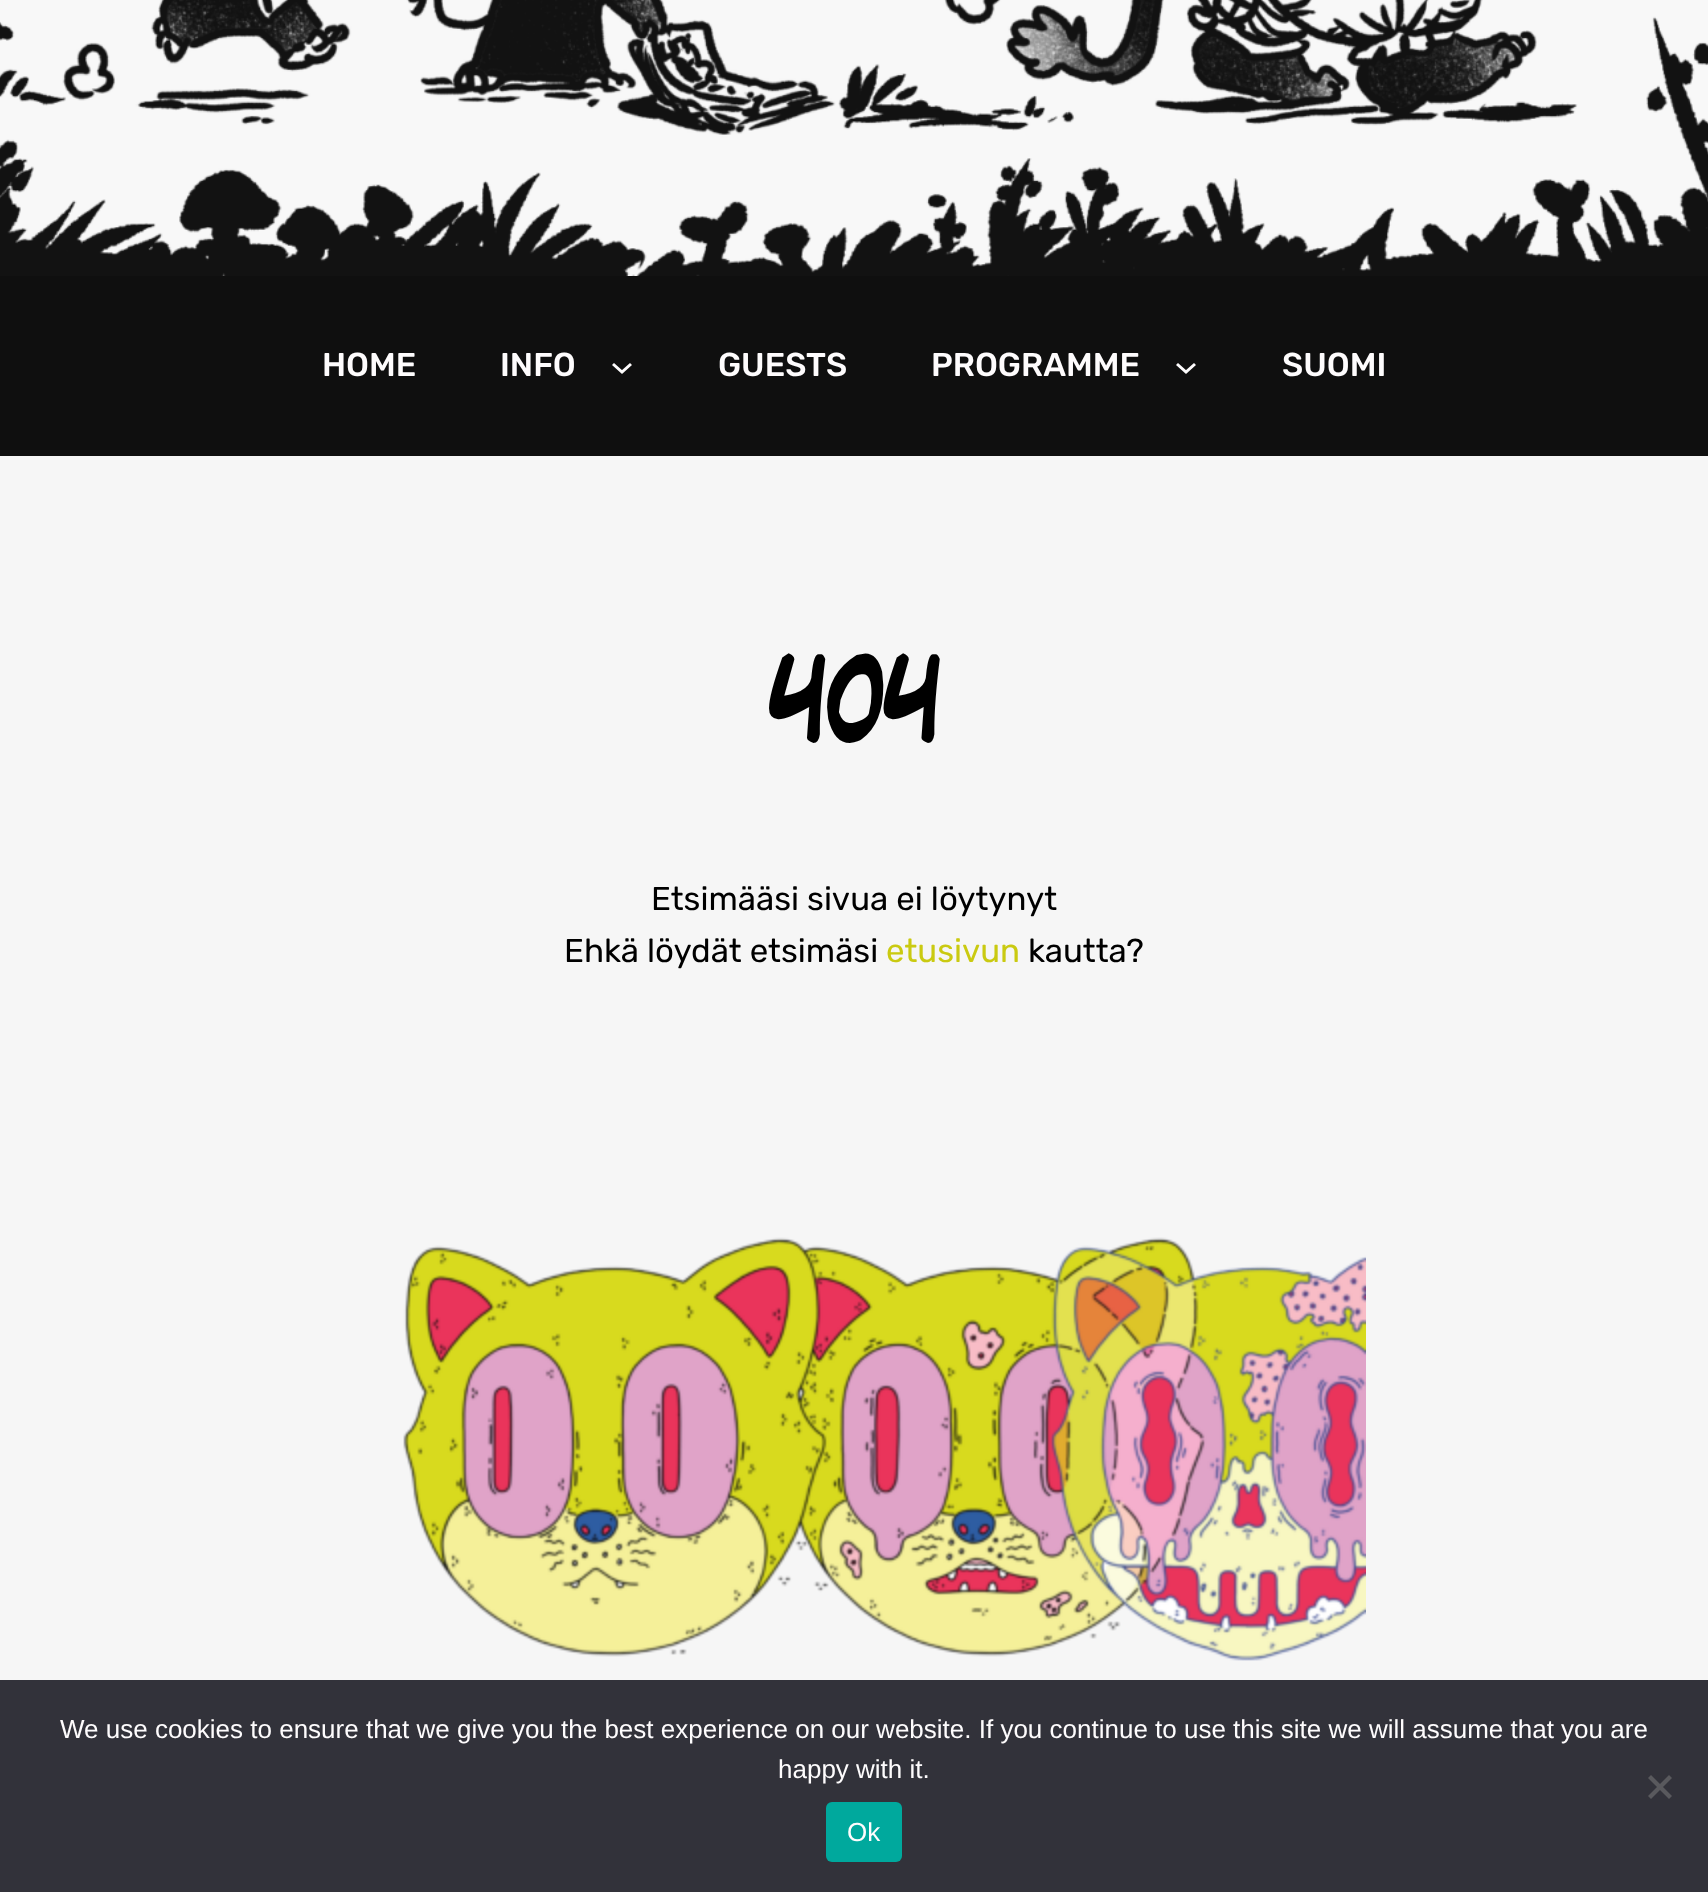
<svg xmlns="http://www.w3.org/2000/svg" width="1708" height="1892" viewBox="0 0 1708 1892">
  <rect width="100%" height="100%" fill="#f6f6f6"/>
  <image x="0" y="0" width="1708" height="276" href="img/1.png"/>
  <path d="M0 276h1708v180H0z" fill="#0f0f0f"/>
  <path d="M613 364L622 372L631 364" fill="none" stroke="#fefcfd" stroke-width="3"/>
  <path d="M1177 364L1186 372L1195 364" fill="none" stroke="#fefcfd" stroke-width="3"/>
  <image x="403" y="1237" width="963" height="424" href="img/2.png"/>
  <path d="M0 1680h1708v212H0z" fill="#32323a"/>
  <path d="M1669 1775L1672 1778L1651 1799L1648 1796Z" fill="#59595d"/>
  <path d="M1648 1778L1651 1775L1672 1796L1669 1799Z" fill="#59595d"/>
  <rect x="826" y="1802" width="76" height="60" rx="6" fill="#00a99d"/>
  <g font-family="Rubik" font-size="33" font-weight="500" fill="#fefcfd">
    <text x="322" y="376">HOME</text>
    <text x="500" y="376">INFO</text>
    <text x="718" y="376">GUESTS</text>
    <text x="931" y="376">PROGRAMME</text>
    <text x="1282" y="376">SUOMI</text>
  </g>
  <text x="769" y="743" font-family="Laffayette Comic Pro" font-size="96" font-weight="bold" fill="#000">404</text>
  <g font-family="Rubik" font-size="33" fill="#000">
    <text x="651" y="910">Etsimääsi sivua ei löytynyt</text>
    <text x="564" y="962">Ehkä löydät etsimäsi</text>
  </g>
  <text x="886" y="962" font-family="Rubik" font-size="33" fill="#caca11">etusivun</text>
  <text x="1028" y="962" font-family="Rubik" font-size="33" fill="#000">kautta?</text>
  <g font-family="Liberation Sans" font-size="26" fill="#fefcfd">
    <text x="60" y="1738">We use cookies to ensure that we give you the best experience on our website. If you continue to use this site we will assume that you are</text>
    <text x="778" y="1778">happy with it.</text>
    <text x="847" y="1841">Ok</text>
  </g>
</svg>
